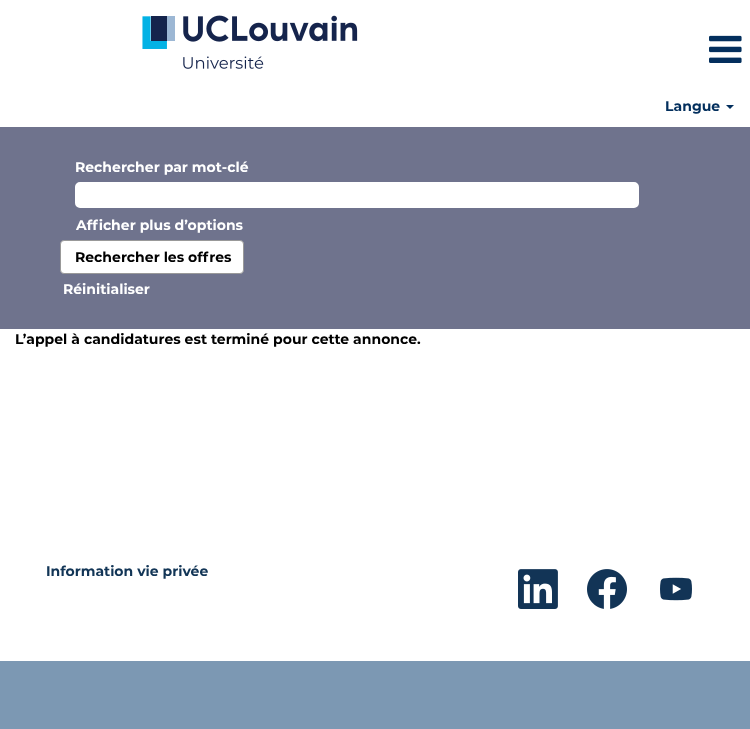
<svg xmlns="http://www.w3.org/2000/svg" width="750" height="729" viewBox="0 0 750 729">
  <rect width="100%" height="100%" fill="#7c98b3"/>
  <path d="M0 0h750v127H0z" fill="#fff"/>
  <image x="142" y="15" width="216" height="54" href="img/1.png"/>
  <image x="709" y="35" width="33" height="28" href="img/2.png"/>
  <path d="M726 105H734L730 109Z" fill="#032f5d"/>
  <path d="M0 329h750v332H0z" fill="#fff"/>
  <path d="M0 127h750v202H0z" fill="#6f738d"/>
  <rect x="76" y="183" width="562" height="24" rx="4" fill="#fff" stroke="#fff" stroke-width="2"/>
  <rect x="60.5" y="240.5" width="183" height="33" rx="3.5" fill="#fff" stroke="#999"/>
  <image x="518" y="569" width="40" height="40" href="img/3.png"/>
  <image x="587" y="569" width="40" height="40" href="img/4.png"/>
  <image x="660" y="577" width="32" height="24" href="img/5.png"/>
  <text x="665" y="111" font-family="Montserrat" font-size="14" font-weight="bold" fill="#032f5d">Langue</text>
  <g font-family="Montserrat" font-size="14" font-weight="bold" fill="#fff">
    <text x="75" y="172">Rechercher par mot-clé</text>
    <text x="76" y="230">Afficher plus d’options</text>
  </g>
  <text x="75" y="262" font-family="Montserrat" font-size="14" font-weight="bold" fill="#000">Rechercher les offres</text>
  <text x="63" y="294" font-family="Montserrat" font-size="14" font-weight="bold" fill="#fff">Réinitialiser</text>
  <text x="15" y="344" font-family="Montserrat" font-size="14" font-weight="bold" fill="#000">L’appel à candidatures est terminé pour cette annonce.</text>
  <text x="46" y="576" font-family="Montserrat" font-size="14" font-weight="bold" fill="#123556">Information vie privée</text>
</svg>
